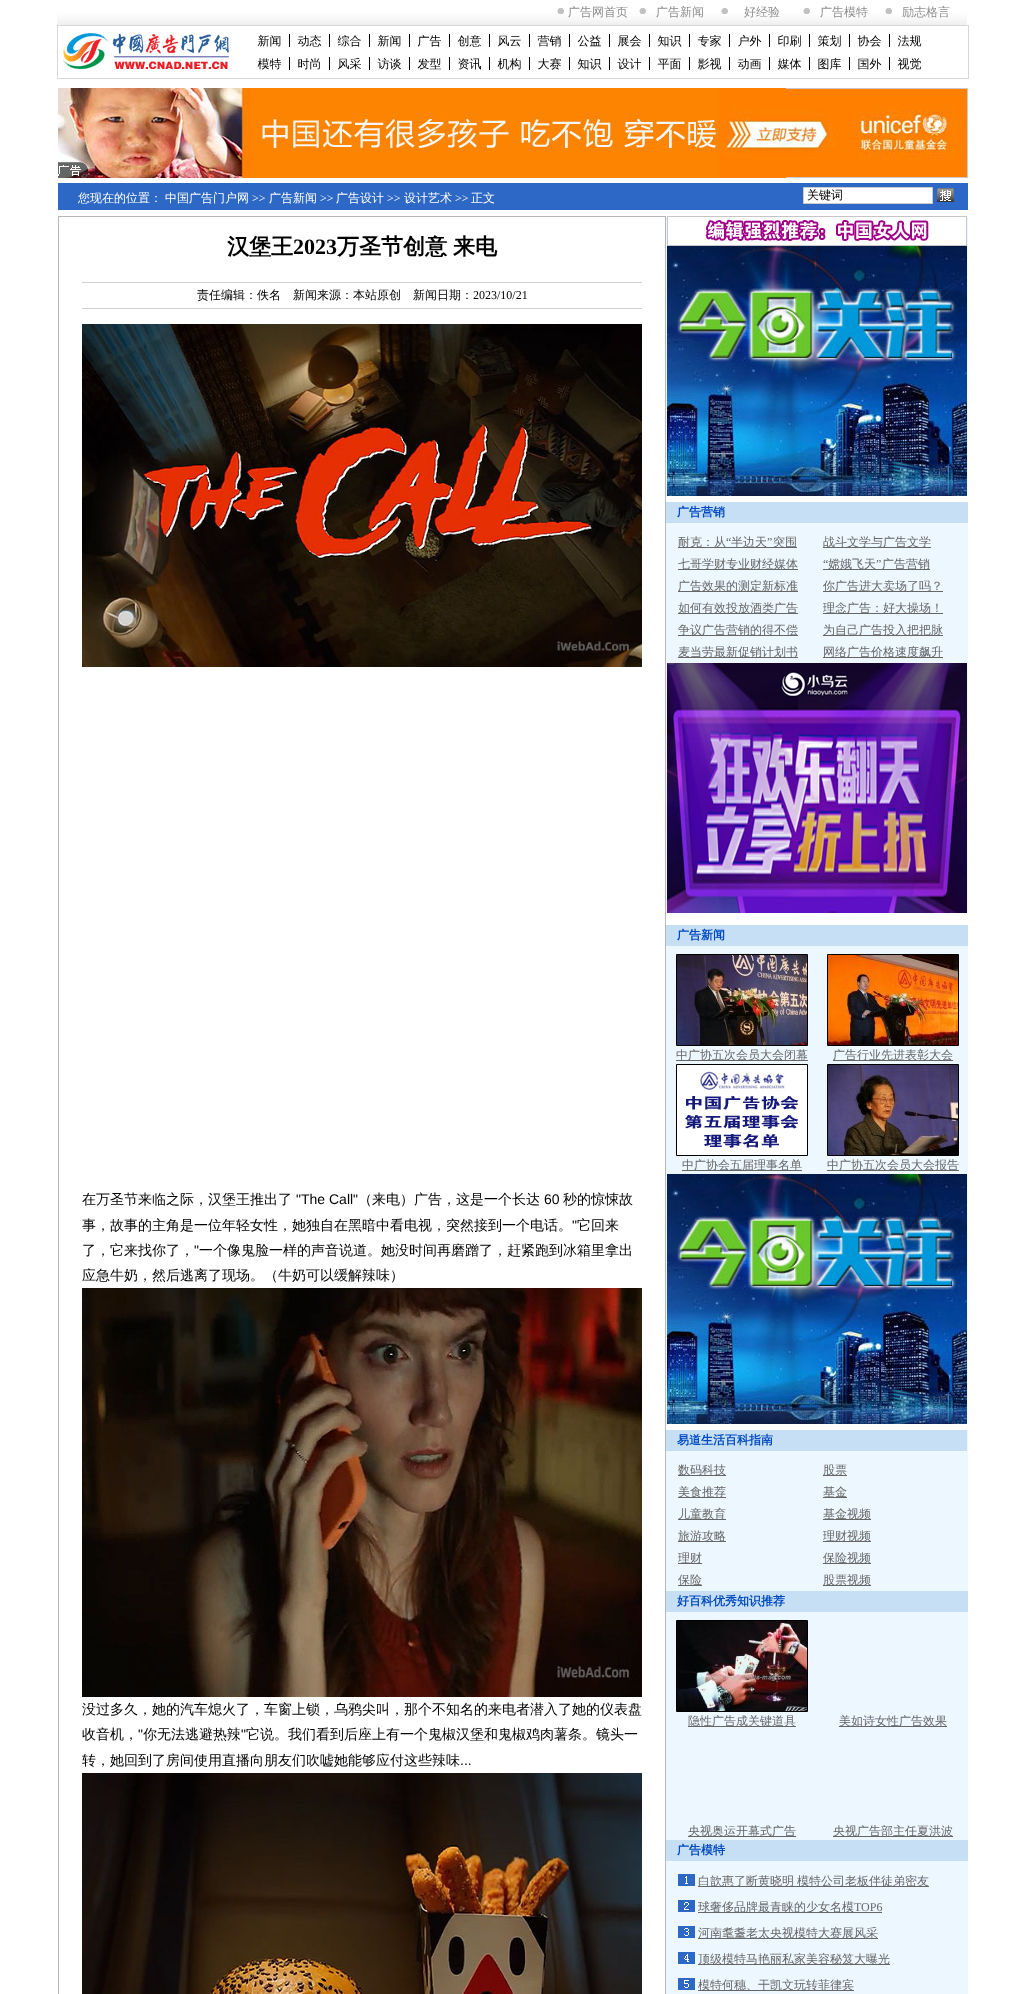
<svg xmlns="http://www.w3.org/2000/svg" width="1026" height="1994" viewBox="0 0 1026 1994">
  <rect width="100%" height="100%" fill="#fff"/>
  <image x="57" y="5" width="912" height="74" href="img/1.png"/>
  <image x="58" y="88" width="909" height="90" href="img/2.png"/>
  <path d="M786 88h182v1H786z" fill="#cdc9ca"/>
  <path d="M967 88h1v90H967z" fill="#cdc9ca"/>
  <path d="M786 177h182v1H786z" fill="#cdc9ca"/>
  <path d="M58 183h910v27H58z" fill="#2d68c6"/>
  <path d="M803.5 187.5h129v16H803.5z" fill="#fff" stroke="#ccc"/>
  <image x="937" y="188" width="17" height="14" href="img/3.png"/>
  <image x="58" y="216" width="910" height="1778" href="img/4.png"/>
  <path d="M58 216h608v1H58z" fill="#b7b7b7"/>
  <path d="M82 282h560v1H82z" fill="#d0d0d0"/>
  <path d="M82 308h560v1H82z" fill="#d0d0d0"/>
  <image x="82" y="324" width="560" height="343" href="img/5.png"/>
  <image x="82" y="1288" width="560" height="409" href="img/6.png"/>
  <image x="82" y="1773" width="560" height="221" href="img/7.png"/>
  <image x="667" y="216" width="300" height="30" href="img/8.png"/>
  <path d="M666 496h302v6H666z" fill="#fff"/>
  <image x="667" y="246" width="300" height="250" href="img/9.png"/>
  <path d="M666 502h302v21H666z" fill="#c7dff4"/>
  <path d="M678 547h119v1H678z" fill="#666"/>
  <path d="M678 569h120v1H678z" fill="#666"/>
  <path d="M678 591h120v1H678z" fill="#666"/>
  <path d="M678 613h120v1H678z" fill="#666"/>
  <path d="M678 635h120v1H678z" fill="#666"/>
  <path d="M678 657h120v1H678z" fill="#666"/>
  <path d="M823 547h108v1H823z" fill="#666"/>
  <path d="M823 569h107v1H823z" fill="#666"/>
  <path d="M823 591h120v1H823z" fill="#666"/>
  <path d="M823 613h120v1H823z" fill="#666"/>
  <path d="M823 635h120v1H823z" fill="#666"/>
  <path d="M823 657h120v1H823z" fill="#666"/>
  <path d="M666 913h302v12H666z" fill="#fff"/>
  <image x="667" y="663" width="300" height="250" href="img/10.png"/>
  <path d="M666 925h302v21H666z" fill="#c7dff4"/>
  <path d="M676.5 954.5h131v91H676.5z" fill="none" stroke="#000"/>
  <image x="677" y="955" width="130" height="90" href="img/11.png"/>
  <path d="M676 1060h132v1H676z" fill="#666"/>
  <path d="M827.5 954.5h131v91H827.5z" fill="none" stroke="#000"/>
  <image x="828" y="955" width="130" height="90" href="img/12.png"/>
  <path d="M833 1060h120v1H833z" fill="#666"/>
  <path d="M676.5 1064.5h131v91H676.5z" fill="none" stroke="#000"/>
  <image x="677" y="1065" width="130" height="90" href="img/13.png"/>
  <path d="M682 1170h120v1H682z" fill="#666"/>
  <path d="M827.5 1064.5h131v91H827.5z" fill="none" stroke="#000"/>
  <image x="828" y="1065" width="130" height="90" href="img/14.png"/>
  <path d="M827 1170h132v1H827z" fill="#666"/>
  <path d="M666 1424h302v6H666z" fill="#fff"/>
  <image x="667" y="1174" width="300" height="250" href="img/9.png"/>
  <path d="M666 1430h301v21H666z" fill="#c7dff4"/>
  <path d="M678 1475h48v1H678z" fill="#666"/>
  <path d="M678 1497h48v1H678z" fill="#666"/>
  <path d="M678 1519h48v1H678z" fill="#666"/>
  <path d="M678 1541h48v1H678z" fill="#666"/>
  <path d="M678 1563h24v1H678z" fill="#666"/>
  <path d="M678 1585h24v1H678z" fill="#666"/>
  <path d="M823 1475h24v1H823z" fill="#666"/>
  <path d="M823 1497h24v1H823z" fill="#666"/>
  <path d="M823 1519h48v1H823z" fill="#666"/>
  <path d="M823 1541h48v1H823z" fill="#666"/>
  <path d="M823 1563h48v1H823z" fill="#666"/>
  <path d="M823 1585h48v1H823z" fill="#666"/>
  <path d="M666 1591h302v21H666z" fill="#c7dff4"/>
  <path d="M676.5 1620.5h131v91H676.5z" fill="none" stroke="#000"/>
  <image x="677" y="1621" width="130" height="90" href="img/15.png"/>
  <path d="M688 1726h108v1H688z" fill="#666"/>
  <path d="M839 1726h108v1H839z" fill="#666"/>
  <path d="M688 1836h108v1H688z" fill="#666"/>
  <path d="M833 1836h120v1H833z" fill="#666"/>
  <path d="M666 1840h302v21H666z" fill="#c7dff4"/>
  <image x="678" y="1874" width="17" height="116" href="img/16.png"/>
  <path d="M698 1886h231v1H698z" fill="#666"/>
  <path d="M698 1912h184v1H698z" fill="#666"/>
  <path d="M698 1938h180v1H698z" fill="#666"/>
  <path d="M698 1964h192v1H698z" fill="#666"/>
  <path d="M698 1990h156v1H698z" fill="#666"/>
  <g font-family="WenQuanYi Zen Hei" font-size="12" font-weight="500" fill="#fff">
    <text x="78" y="202">您现在的位置：</text>
    <text x="165" y="202">中国广告门户网</text>
  </g>
  <text x="252" y="202" font-family="Liberation Serif" font-size="12" fill="#fff">&gt;&gt;</text>
  <text x="269" y="202" font-family="WenQuanYi Zen Hei" font-size="12" font-weight="500" fill="#fff">广告新闻</text>
  <text x="320" y="202" font-family="Liberation Serif" font-size="12" fill="#fff">&gt;&gt;</text>
  <text x="336" y="202" font-family="WenQuanYi Zen Hei" font-size="12" font-weight="500" fill="#fff">广告设计</text>
  <text x="387" y="202" font-family="Liberation Serif" font-size="12" fill="#fff">&gt;&gt;</text>
  <text x="404" y="202" font-family="WenQuanYi Zen Hei" font-size="12" font-weight="500" fill="#fff">设计艺术</text>
  <text x="455" y="202" font-family="Liberation Serif" font-size="12" fill="#fff">&gt;&gt;</text>
  <text x="471" y="202" font-family="WenQuanYi Zen Hei" font-size="12" font-weight="500" fill="#fff">正文</text>
  <text x="807" y="199" font-family="WenQuanYi Zen Hei" font-size="12" font-weight="500" fill="#000">关键词</text>
  <text x="227" y="254" font-family="WenQuanYi Zen Hei" font-size="22" font-weight="bold" fill="#000">汉堡王</text>
  <text x="293" y="254" font-family="Liberation Serif" font-size="22" font-weight="bold" fill="#000">2023</text>
  <g font-family="WenQuanYi Zen Hei" font-size="22" font-weight="bold" fill="#000">
    <text x="337" y="254">万圣节创意</text>
    <text x="453" y="254">来电</text>
  </g>
  <g font-family="WenQuanYi Zen Hei" font-size="12" font-weight="500" fill="#000">
    <text x="197" y="299">责任编辑：佚名</text>
    <text x="293" y="299">新闻来源：本站原创</text>
    <text x="413" y="299">新闻日期：</text>
  </g>
  <text x="473" y="299" font-family="Liberation Serif" font-size="12" fill="#000">2023/10/21</text>
  <text x="82" y="1204" font-family="WenQuanYi Zen Hei" font-size="14" font-weight="500" fill="#000">在万圣节来临之际，汉堡王推出了</text>
  <text x="296" y="1204" font-family="Liberation Sans" font-size="14" fill="#000">"The Call"</text>
  <text x="358" y="1204" font-family="WenQuanYi Zen Hei" font-size="14" font-weight="500" fill="#000">（来电）广告，这是一个长达</text>
  <text x="544" y="1204" font-family="Liberation Sans" font-size="14" fill="#000">60</text>
  <g font-family="WenQuanYi Zen Hei" font-size="14" font-weight="500" fill="#000">
    <text x="563" y="1204">秒的惊悚故</text>
    <text x="82" y="1230">事，故事的主角是一位年轻女性，她独自在黑暗中看电视，突然接到一个电话。</text>
  </g>
  <text x="572" y="1230" font-family="Liberation Sans" font-size="14" fill="#000">"</text>
  <g font-family="WenQuanYi Zen Hei" font-size="14" font-weight="500" fill="#000">
    <text x="577" y="1230">它回来</text>
    <text x="82" y="1255">了，它来找你了，</text>
  </g>
  <text x="194" y="1255" font-family="Liberation Sans" font-size="14" fill="#000">"</text>
  <g font-family="WenQuanYi Zen Hei" font-size="14" font-weight="500" fill="#000">
    <text x="199" y="1255">一个像鬼脸一样的声音说道。她没时间再磨蹭了，赶紧跑到冰箱里拿出</text>
    <text x="82" y="1280">应急牛奶，然后逃离了现场。（牛奶可以缓解辣味）</text>
    <text x="82" y="1714">没过多久，她的汽车熄火了，车窗上锁，乌鸦尖叫，那个不知名的来电者潜入了她的仪表盘</text>
    <text x="82" y="1739">收音机，</text>
  </g>
  <text x="138" y="1739" font-family="Liberation Sans" font-size="14" fill="#000">"</text>
  <text x="143" y="1739" font-family="WenQuanYi Zen Hei" font-size="14" font-weight="500" fill="#000">你无法逃避热辣</text>
  <text x="241" y="1739" font-family="Liberation Sans" font-size="14" fill="#000">"</text>
  <g font-family="WenQuanYi Zen Hei" font-size="14" font-weight="500" fill="#000">
    <text x="246" y="1739">它说。我们看到后座上有一个鬼椒汉堡和鬼椒鸡肉薯条。镜头一</text>
    <text x="82" y="1765">转，她回到了房间使用直播向朋友们吹嘘她能够应付这些辣味</text>
  </g>
  <text x="460" y="1765" font-family="Liberation Sans" font-size="14" fill="#000">...</text>
  <text x="677" y="516" font-family="WenQuanYi Zen Hei" font-size="12" font-weight="bold" fill="#004ac1">广告营销</text>
  <text x="678" y="546" font-family="WenQuanYi Zen Hei" font-size="12" font-weight="500" fill="#666">耐克：从</text>
  <text x="726" y="546" font-family="Liberation Serif" font-size="12" fill="#666">“</text>
  <text x="731" y="546" font-family="WenQuanYi Zen Hei" font-size="12" font-weight="500" fill="#666">半边天</text>
  <text x="767" y="546" font-family="Liberation Serif" font-size="12" fill="#666">”</text>
  <g font-family="WenQuanYi Zen Hei" font-size="12" font-weight="500" fill="#666">
    <text x="773" y="546">突围</text>
    <text x="678" y="568">七哥学财专业财经媒体</text>
    <text x="678" y="590">广告效果的测定新标准</text>
    <text x="678" y="612">如何有效投放酒类广告</text>
    <text x="678" y="634">争议广告营销的得不偿</text>
    <text x="678" y="656">麦当劳最新促销计划书</text>
    <text x="823" y="546">战斗文学与广告文学</text>
  </g>
  <text x="823" y="568" font-family="Liberation Serif" font-size="12" fill="#666">“</text>
  <text x="828" y="568" font-family="WenQuanYi Zen Hei" font-size="12" font-weight="500" fill="#666">嫦娥飞天</text>
  <text x="876" y="568" font-family="Liberation Serif" font-size="12" fill="#666">”</text>
  <g font-family="WenQuanYi Zen Hei" font-size="12" font-weight="500" fill="#666">
    <text x="882" y="568">广告营销</text>
    <text x="823" y="590">你广告进大卖场了吗？</text>
    <text x="823" y="612">理念广告：好大操场！</text>
    <text x="823" y="634">为自己广告投入把把脉</text>
    <text x="823" y="656">网络广告价格速度飙升</text>
  </g>
  <text x="677" y="939" font-family="WenQuanYi Zen Hei" font-size="12" font-weight="bold" fill="#004ac1">广告新闻</text>
  <g font-family="WenQuanYi Zen Hei" font-size="12" font-weight="500" fill="#666">
    <text x="676" y="1059">中广协五次会员大会闭幕</text>
    <text x="833" y="1059">广告行业先进表彰大会</text>
    <text x="682" y="1169">中广协会五届理事名单</text>
    <text x="827" y="1169">中广协五次会员大会报告</text>
  </g>
  <text x="677" y="1444" font-family="WenQuanYi Zen Hei" font-size="12" font-weight="bold" fill="#004ac1">易道生活百科指南</text>
  <g font-family="WenQuanYi Zen Hei" font-size="12" font-weight="500" fill="#666">
    <text x="678" y="1474">数码科技</text>
    <text x="678" y="1496">美食推荐</text>
    <text x="678" y="1518">儿童教育</text>
    <text x="678" y="1540">旅游攻略</text>
    <text x="678" y="1562">理财</text>
    <text x="678" y="1584">保险</text>
    <text x="823" y="1474">股票</text>
    <text x="823" y="1496">基金</text>
    <text x="823" y="1518">基金视频</text>
    <text x="823" y="1540">理财视频</text>
    <text x="823" y="1562">保险视频</text>
    <text x="823" y="1584">股票视频</text>
  </g>
  <text x="677" y="1605" font-family="WenQuanYi Zen Hei" font-size="12" font-weight="bold" fill="#004ac1">好百科优秀知识推荐</text>
  <g font-family="WenQuanYi Zen Hei" font-size="12" font-weight="500" fill="#666">
    <text x="688" y="1725">隐性广告成关键道具</text>
    <text x="839" y="1725">美如诗女性广告效果</text>
    <text x="688" y="1835">央视奥运开幕式广告</text>
    <text x="833" y="1835">央视广告部主任夏洪波</text>
  </g>
  <text x="677" y="1854" font-family="WenQuanYi Zen Hei" font-size="12" font-weight="bold" fill="#004ac1">广告模特</text>
  <g font-family="WenQuanYi Zen Hei" font-size="12" font-weight="500" fill="#666">
    <text x="698" y="1885">白歆惠了断黄晓明</text>
    <text x="797" y="1885">模特公司老板伴徒弟密友</text>
    <text x="698" y="1911">球奢侈品牌最青睐的少女名模</text>
  </g>
  <text x="854" y="1911" font-family="Liberation Serif" font-size="12" fill="#666">TOP6</text>
  <g font-family="WenQuanYi Zen Hei" font-size="12" font-weight="500" fill="#666">
    <text x="698" y="1937">河南耄耋老太央视模特大赛展风采</text>
    <text x="698" y="1963">顶级模特马艳丽私家美容秘笈大曝光</text>
    <text x="698" y="1989">模特何穗、干凯文玩转菲律宾</text>
  </g>
</svg>
